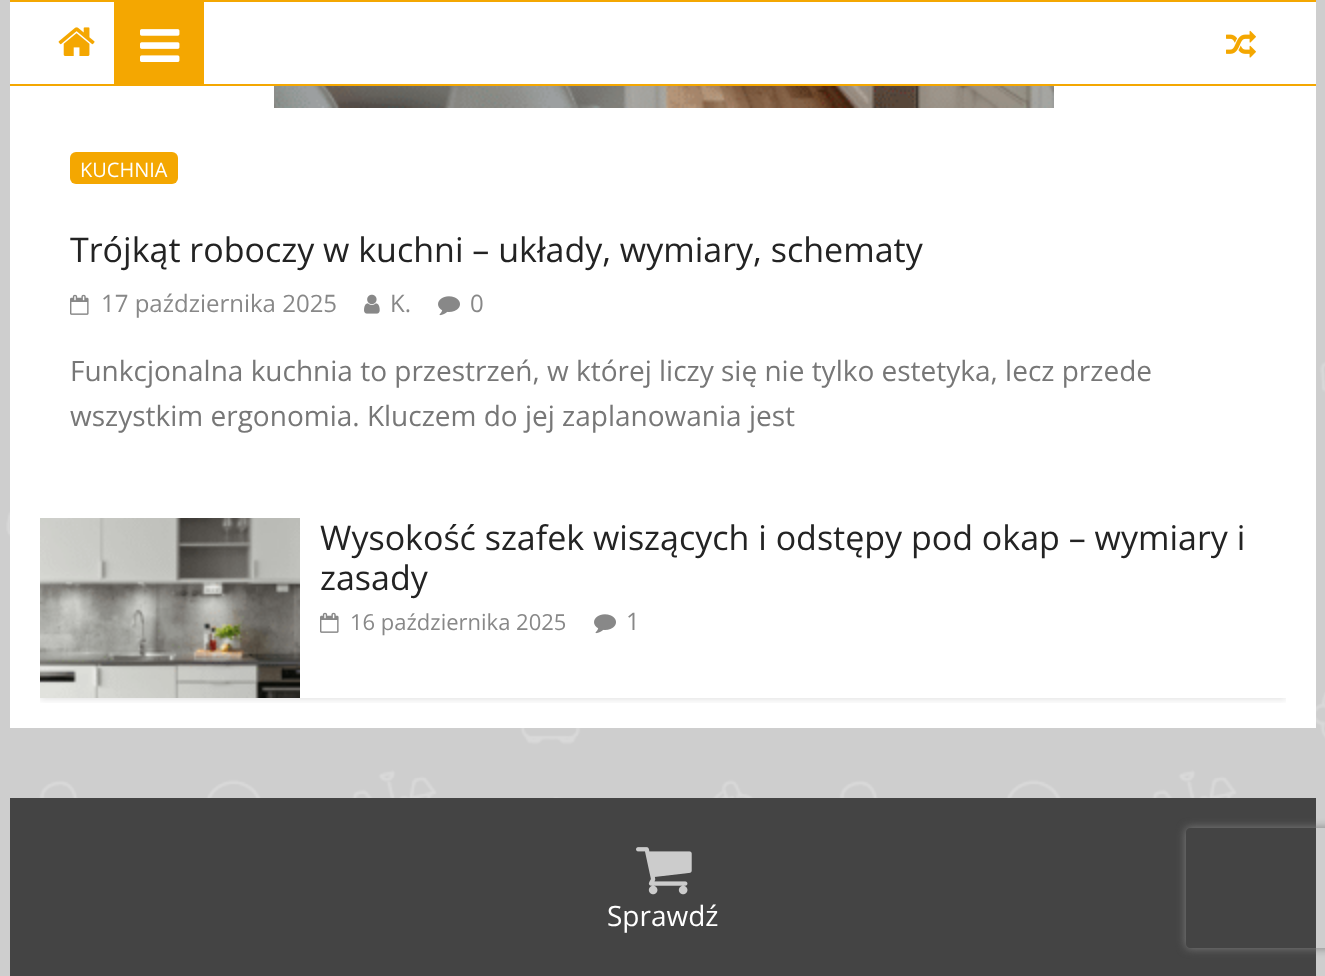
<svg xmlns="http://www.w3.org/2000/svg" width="1325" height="976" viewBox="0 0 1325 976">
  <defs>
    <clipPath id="clip1"><path d="M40 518h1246v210H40z"/></clipPath>
    <clipPath id="clip2"><path d="M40 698h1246v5H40z"/></clipPath>
    <clipPath id="clip3"><path d="M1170 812H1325V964H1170ZM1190 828H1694C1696 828 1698 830 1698 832V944C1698 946 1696 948 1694 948H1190C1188 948 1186 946 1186 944V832C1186 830 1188 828 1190 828Z" clip-rule="evenodd"/></clipPath>
  </defs>
  <rect width="100%" height="100%" fill="#cecece"/>
  <image x="6" y="361" width="1319" height="437" href="img/1.png"/>
  <path d="M10 2h1306v82H10z" fill="#fff"/>
  <path d="M10 0h1306v2H10z" fill="#f4a701"/>
  <path d="M10 84h1306v2H10z" fill="#f4a701"/>
  <image x="58" y="27" width="37" height="29" href="img/2.png"/>
  <path d="M114 2h90v82H114z" fill="#f4a701"/>
  <image x="140" y="29" width="40" height="33" href="img/3.png"/>
  <image x="1226" y="30" width="30" height="28" href="img/4.png"/>
  <path d="M10 86h1306v642H10z" fill="#fff"/>
  <image x="274" y="86" width="780" height="22" href="img/5.png"/>
  <rect x="70" y="152" width="108" height="32" rx="6" fill="#f4a701"/>
  <image x="70" y="294" width="19" height="21" href="img/6.png"/>
  <image x="364" y="294" width="16" height="20" href="img/7.png"/>
  <image x="438" y="296" width="22" height="20" href="img/8.png"/>
  <g clip-path="url(#clip1)">
    <g clip-path="url(#clip2)">
      <path d="M40 520h1246v180H40z" fill="#0000001a" filter="blur(3px)"/>
    </g>
  </g>
  <image x="40" y="518" width="260" height="180" href="img/9.png"/>
  <image x="320" y="612" width="19" height="21" href="img/6.png"/>
  <image x="594" y="614" width="22" height="20" href="img/8.png"/>
  <path d="M10 798h1306v178H10z" fill="#444"/>
  <image x="636" y="847" width="56" height="48" href="img/10.png"/>
  <g clip-path="url(#clip3)">
    <rect x="1186" y="828" width="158" height="120" rx="4" fill="#808080" filter="blur(5px)"/>
  </g>
  <text x="80" y="177" font-family="Open Sans" font-size="20" fill="#fff">KUCHNIA</text>
  <text x="70" y="262" font-family="Open Sans" font-size="34" fill="#232323">Trójkąt roboczy w kuchni – układy, wymiary, schematy</text>
  <g font-family="Open Sans" font-size="24" fill="#888">
    <text x="101" y="312">17 października 2025</text>
    <text x="390" y="312">K.</text>
    <text x="470" y="312">0</text>
  </g>
  <g font-family="Open Sans" font-size="28" fill="#777">
    <text x="70" y="381">Funkcjonalna kuchnia to przestrzeń, w której liczy się nie tylko estetyka, lecz przede</text>
    <text x="70" y="426">wszystkim ergonomia. Kluczem do jej zaplanowania jest</text>
  </g>
  <g font-family="Open Sans" font-size="34" fill="#232323">
    <text x="320" y="550">Wysokość szafek wiszących i odstępy pod okap – wymiary i</text>
    <text x="320" y="590">zasady</text>
  </g>
  <text x="350" y="630" font-family="Open Sans" font-size="22" fill="#888">16 października 2025</text>
  <text x="626" y="630" font-family="Open Sans" font-size="24" fill="#888">1</text>
  <text x="607" y="926" font-family="Open Sans" font-size="28" fill="#fff">Sprawdź</text>
</svg>
